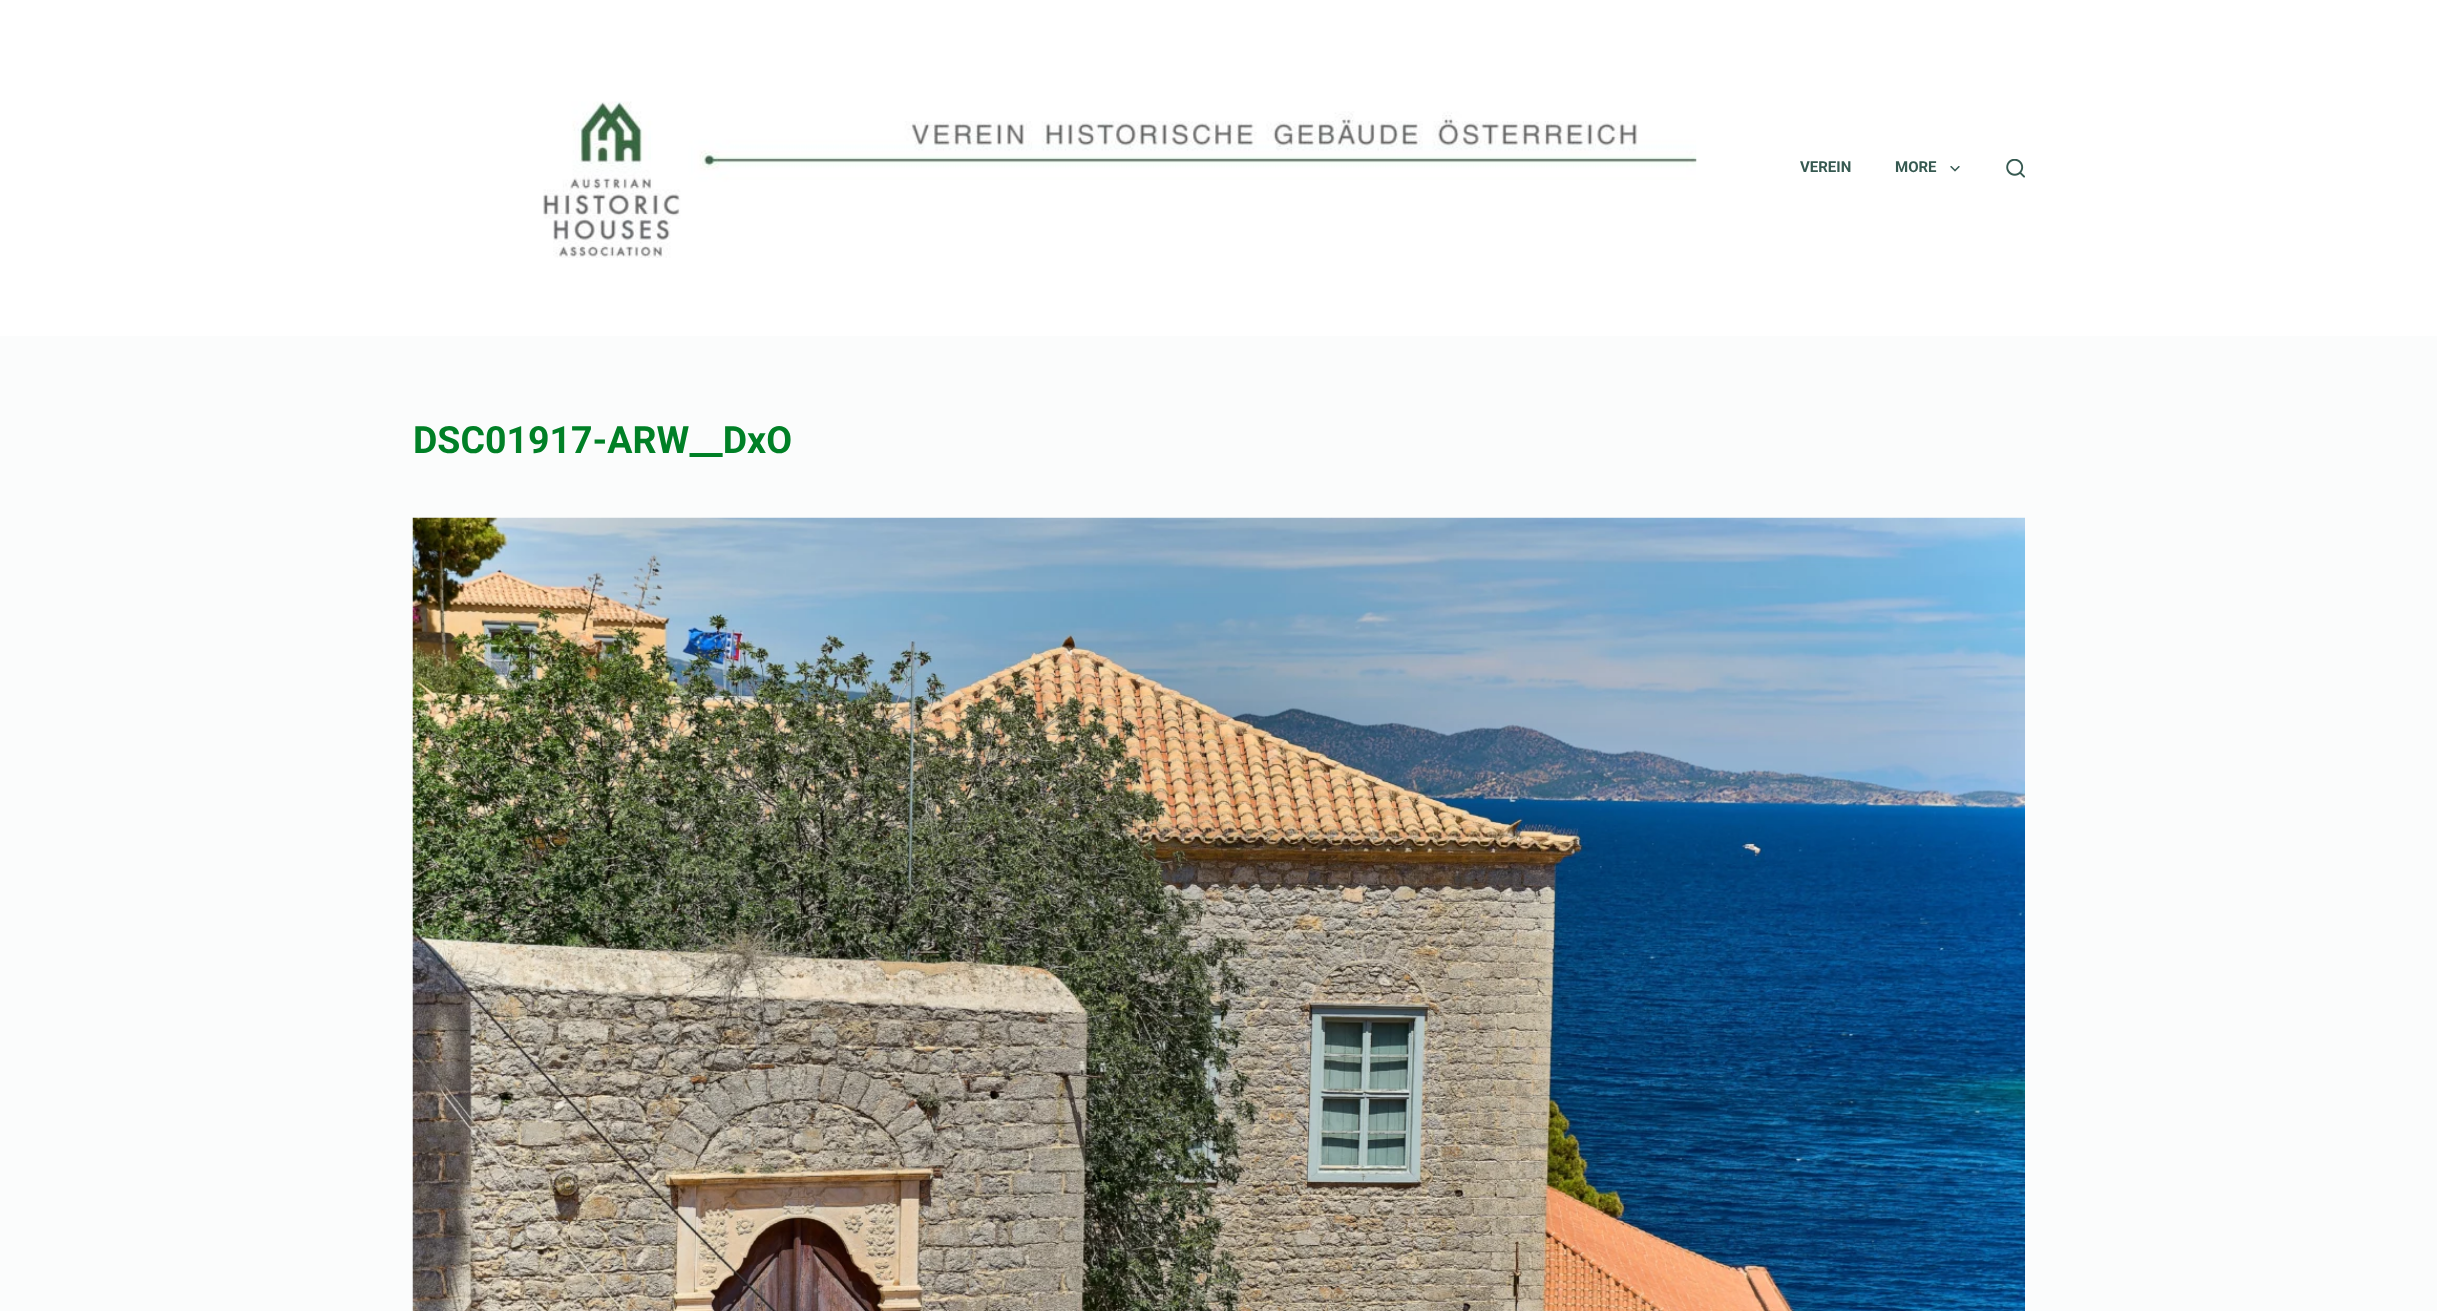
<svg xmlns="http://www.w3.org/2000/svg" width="2437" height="1311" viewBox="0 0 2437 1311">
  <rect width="100%" height="100%" fill="#fbfcfc"/>
  <path d="M0 0h2437v336H0z" fill="#fff"/>
  <image x="543" y="101" width="1154" height="157" href="img/1.png"/>
  <image x="1950" y="166" width="10" height="6" href="img/2.png"/>
  <image x="2006" y="159" width="19" height="19" href="img/3.png"/>
  <image x="412" y="517" width="1613" height="794" href="img/4.png"/>
  <g font-family="Roboto" font-size="15" font-weight="bold" fill="#365951">
    <text x="1800" y="172">VEREIN</text>
    <text x="1895" y="172">MORE</text>
  </g>
  <text x="413" y="453" font-family="Roboto" font-size="37.5" font-weight="bold" fill="#008026">DSC01917-ARW__DxO</text>
</svg>
